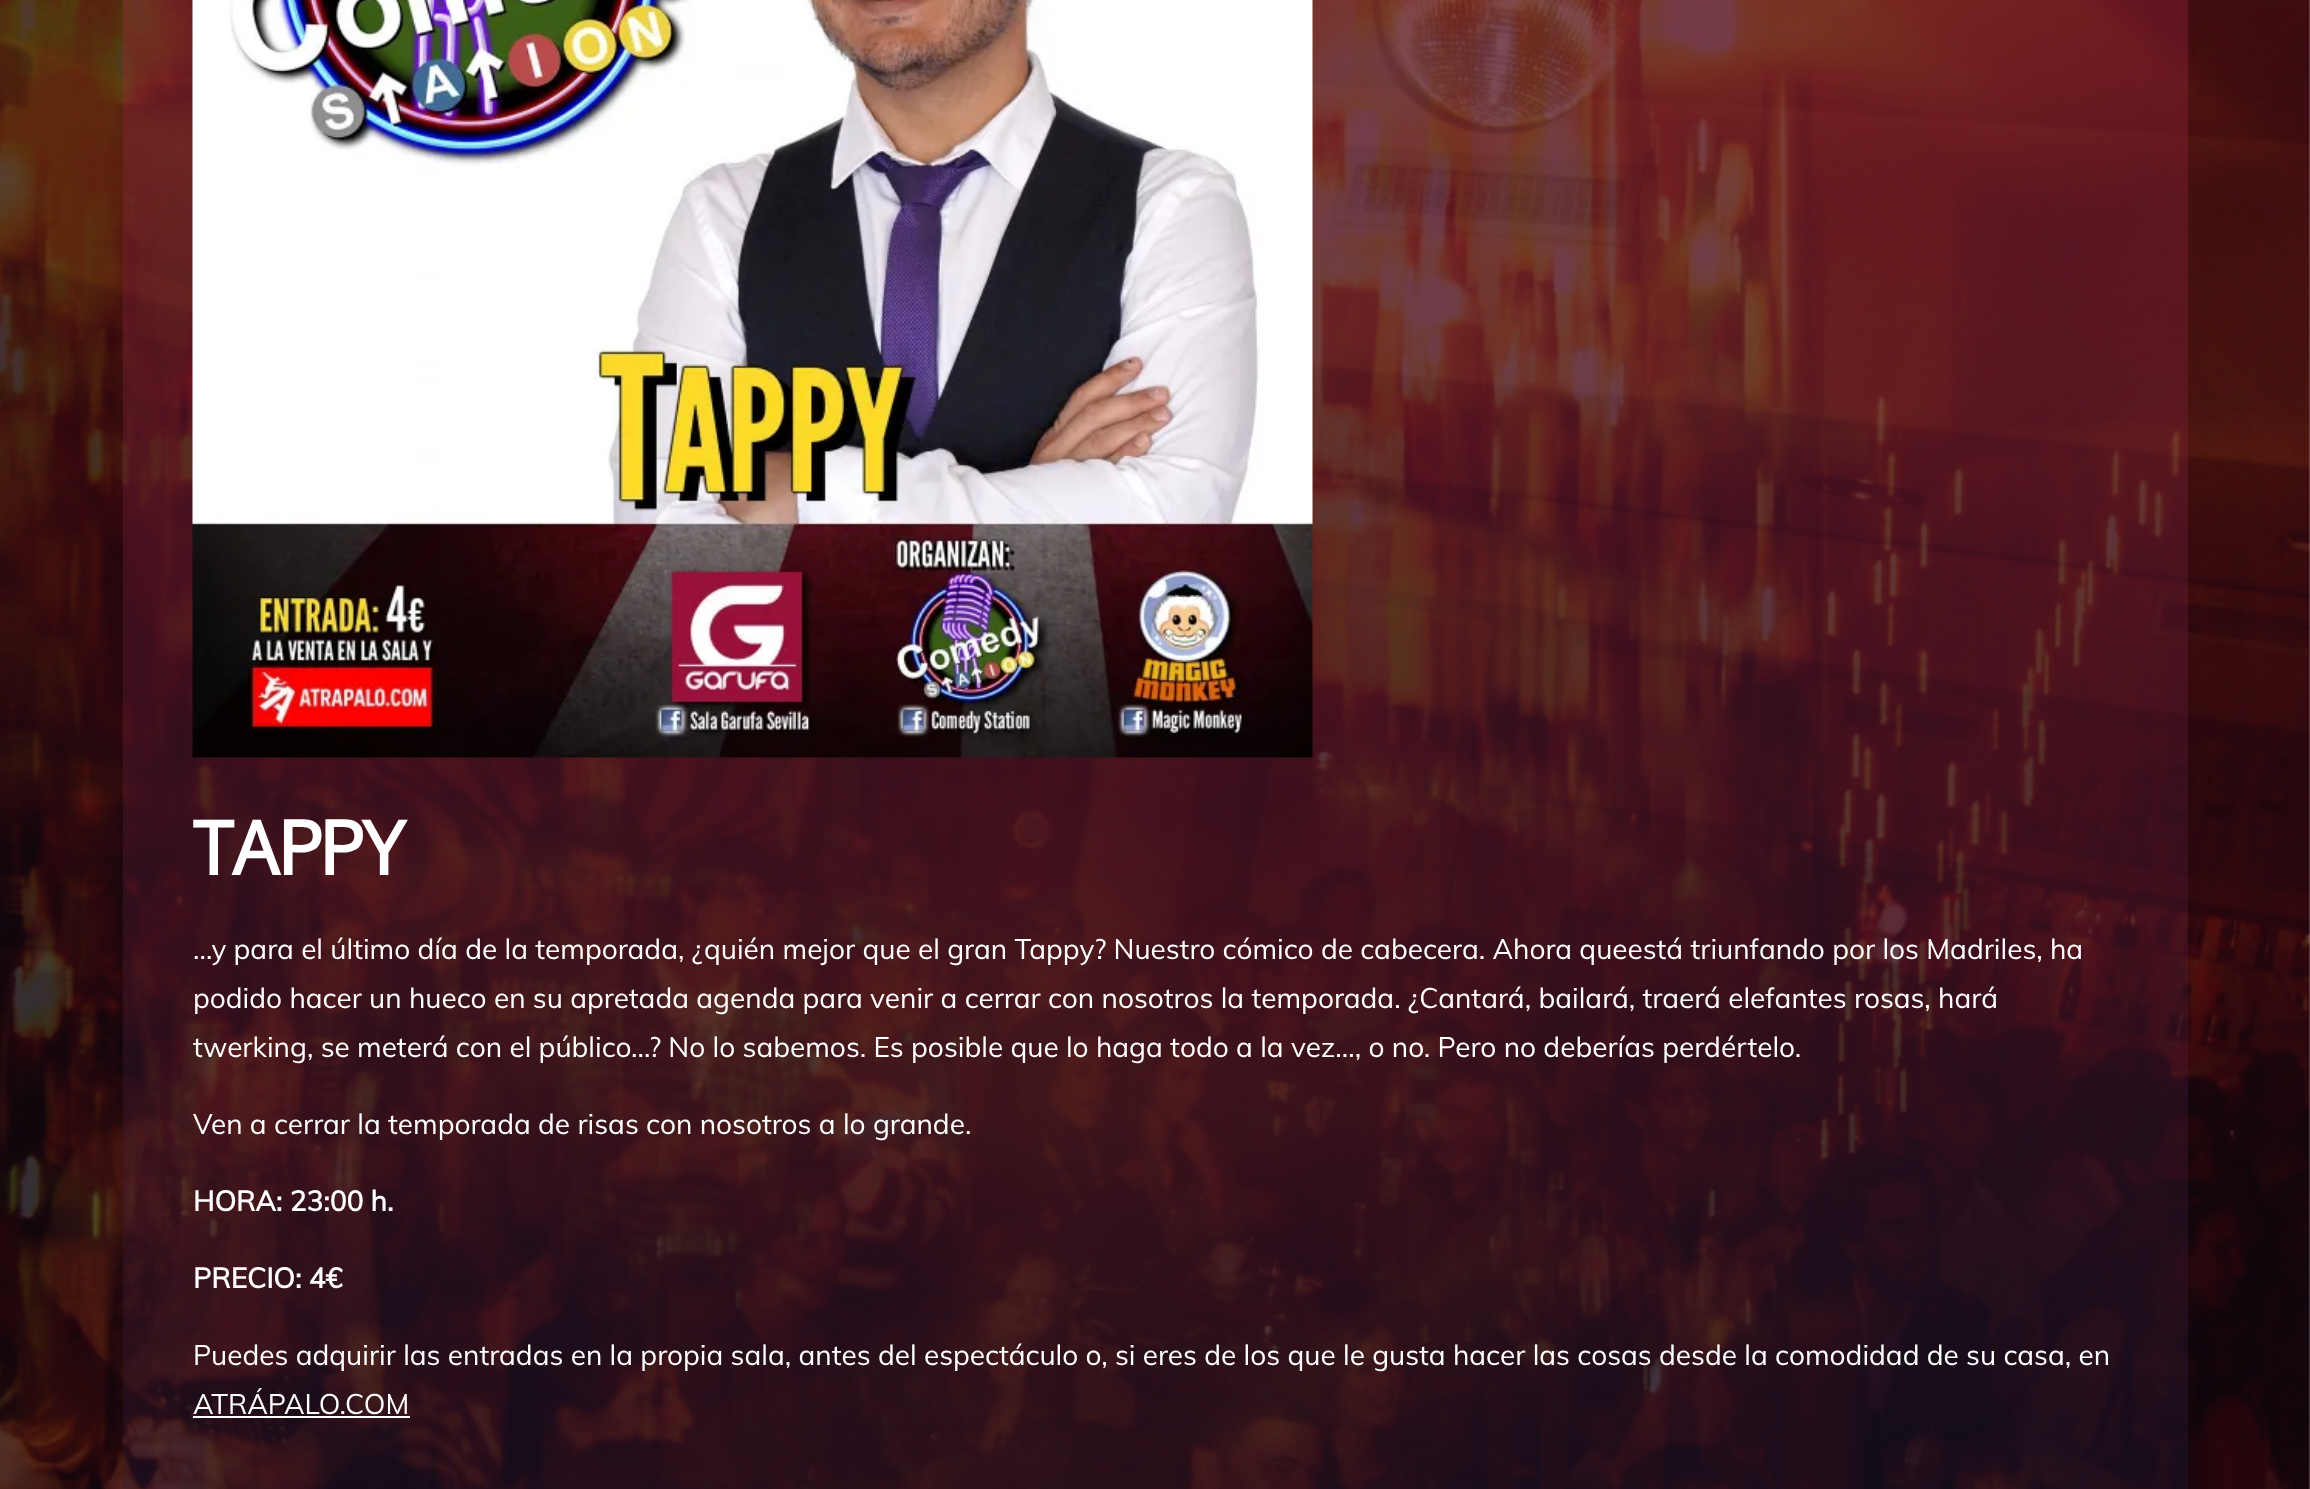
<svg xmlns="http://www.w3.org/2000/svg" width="2310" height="1489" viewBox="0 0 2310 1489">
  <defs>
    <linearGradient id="g1" gradientUnits="userSpaceOnUse" x1="1155" y1="-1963" x2="1155" y2="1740"><stop offset="0" stop-color="#fd2d55" stop-opacity="0.2"/><stop offset="1" stop-color="#1a1a37" stop-opacity="0.2"/></linearGradient>
    <linearGradient id="g2" gradientUnits="userSpaceOnUse" x1="1155" y1="-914" x2="1155" y2="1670"><stop offset="0" stop-color="#fd2d55" stop-opacity="0.3"/><stop offset="1" stop-color="#1a1a37" stop-opacity="0.3"/></linearGradient>
  </defs>
  <rect width="100%" height="100%" fill="#fff"/>
  <image x="0" y="0" width="2310" height="1489" href="img/1.png"/>
  <path d="M0 0h2310v1489H0z" fill="url(#g1)"/>
  <path d="M123 0h2065v1489H123z" fill="url(#g2)"/>
  <image x="192" y="0" width="1121" height="758" href="img/2.png"/>
  <path d="M193 1416h217v2H193z" fill="#fff"/>
  <text x="193" y="875" font-family="Oxygen" font-size="73.5" font-weight="bold" fill="#fff">TAPPY</text>
  <g font-family="Muli" font-size="28" fill="#fff">
    <text x="193" y="959">…y para el último día de la temporada, ¿quién mejor que el gran Tappy? Nuestro cómico de cabecera. Ahora queestá triunfando por los Madriles, ha</text>
    <text x="193" y="1008">podido hacer un hueco en su apretada agenda para venir a cerrar con nosotros la temporada. ¿Cantará, bailará, traerá elefantes rosas, hará</text>
    <text x="193" y="1057">twerking, se meterá con el público…? No lo sabemos. Es posible que lo haga todo a la vez…, o no. Pero no deberías perdértelo.</text>
    <text x="193" y="1134">Ven a cerrar la temporada de risas con nosotros a lo grande.</text>
  </g>
  <g font-family="Muli" font-size="28" font-weight="bold" fill="#fff">
    <text x="193" y="1211">HORA: 23:00 h.</text>
    <text x="193" y="1288">PRECIO: 4€</text>
  </g>
  <g font-family="Muli" font-size="28" fill="#fff">
    <text x="193" y="1365">Puedes adquirir las entradas en la propia sala, antes del espectáculo o, si eres de los que le gusta hacer las cosas desde la comodidad de su casa, en</text>
    <text x="193" y="1414">ATRÁPALO.COM</text>
  </g>
</svg>
